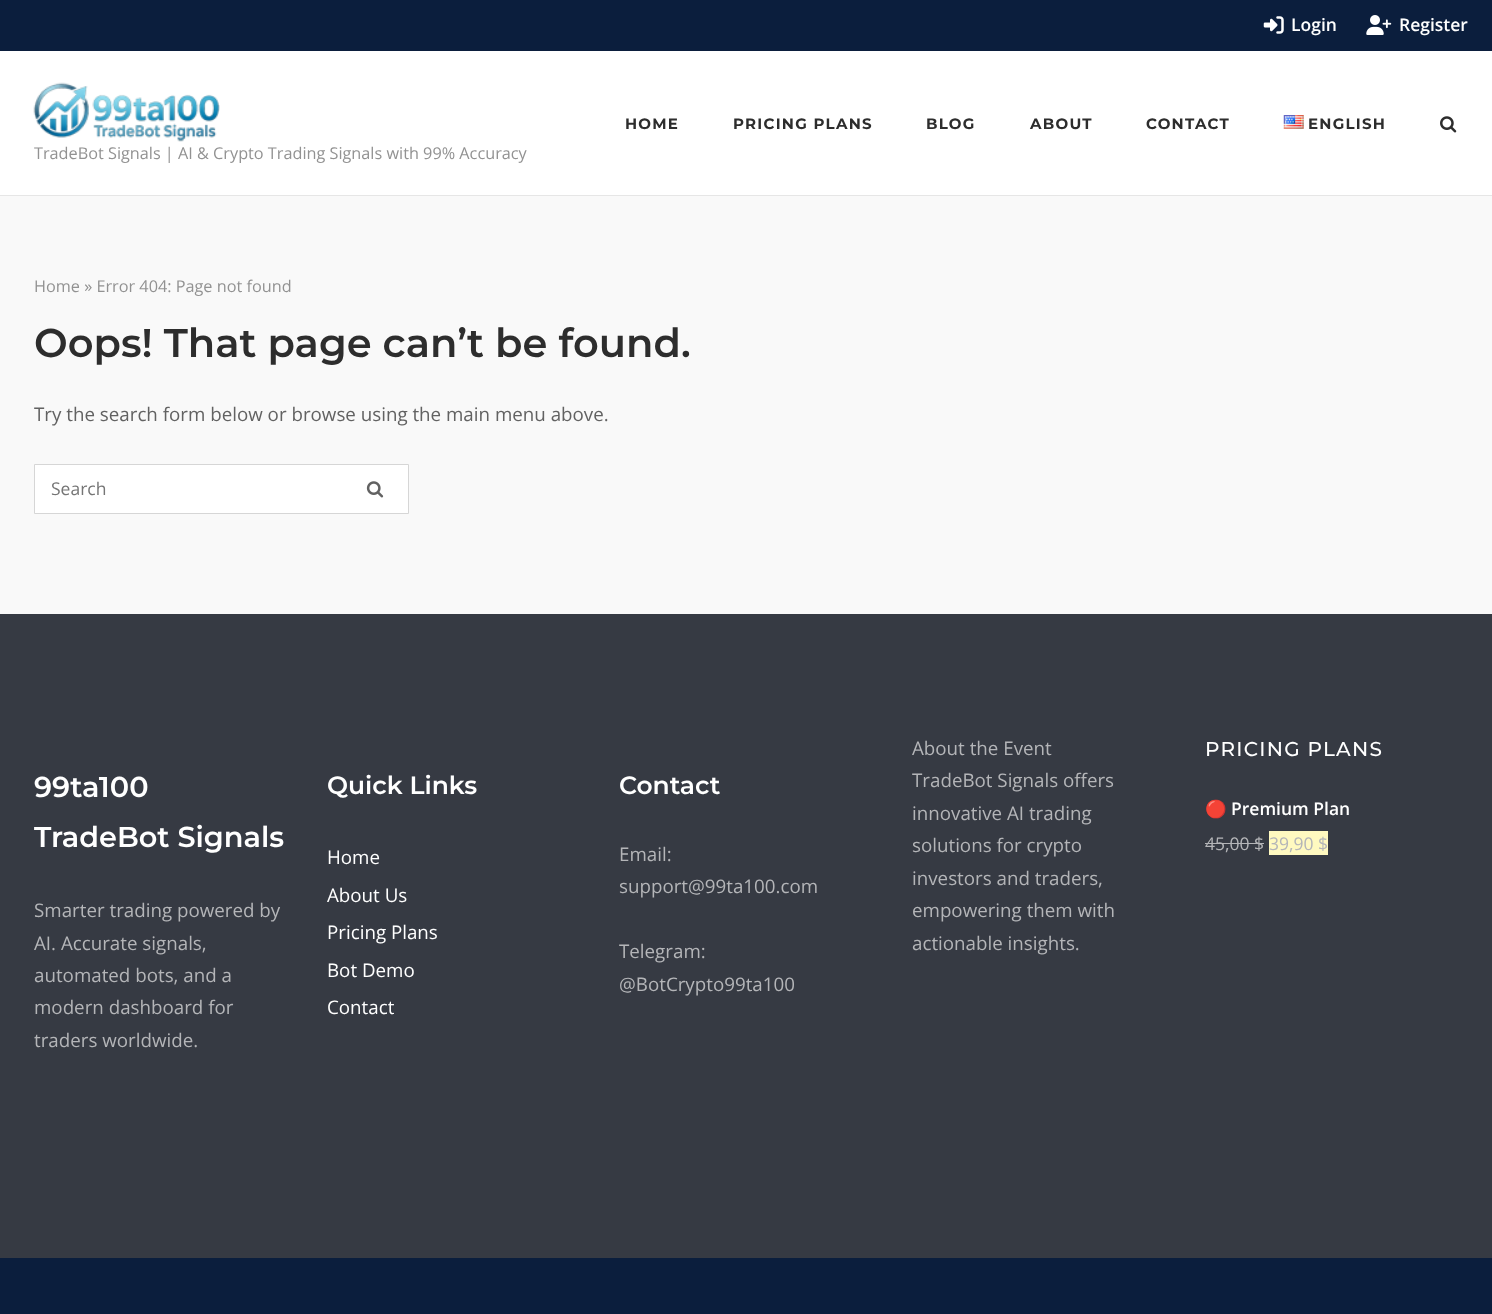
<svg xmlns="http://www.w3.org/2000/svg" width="1492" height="1314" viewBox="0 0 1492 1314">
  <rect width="100%" height="100%" fill="#f9f9f9"/>
  <path d="M0 0h1492v51H0z" fill="#0b1e3d"/>
  <image x="1263" y="16" width="21" height="18" href="img/1.png"/>
  <image x="1366" y="15" width="26" height="20" href="img/2.png"/>
  <path d="M0 51h1492v144H0z" fill="#fff"/>
  <path d="M0 195h1492v1H0z" fill="#e6e6e6"/>
  <image x="1283" y="115" width="21" height="14" href="img/3.png"/>
  <image x="1440" y="116" width="17" height="17" href="img/4.png"/>
  <image x="33" y="82" width="187" height="60" href="img/5.png"/>
  <path d="M34.5 464.5h374v49H34.5z" fill="#fff" stroke="#d6d6d6"/>
  <image x="366" y="481" width="18" height="17" href="img/6.png"/>
  <path d="M0 614h1492v644H0z" fill="#363a43"/>
  <path d="M1205 843h59v1H1205z" fill="#b4b5b8"/>
  <path d="M1269 831h59v24H1269z" fill="#fff9c0"/>
  <path d="M0 1258h1492v56H0z" fill="#0b1e3d"/>
  <g font-family="Open Sans" font-size="17.5" font-weight="600" fill="#fff">
    <text x="1291" y="31">Login</text>
    <text x="1399" y="31">Register</text>
  </g>
  <g font-family="Montserrat" font-size="15" font-weight="bold" letter-spacing="1.25" fill="#2d2d2d">
    <text x="625" y="129">HOME</text>
    <text x="733" y="129">PRICING PLANS</text>
    <text x="926" y="129">BLOG</text>
    <text x="1030" y="129">ABOUT</text>
    <text x="1146" y="129">CONTACT</text>
    <text x="1308" y="129">ENGLISH</text>
  </g>
  <g font-family="Open Sans" font-size="16.25" fill="#929292">
    <text x="34" y="159">TradeBot Signals | AI &amp; Crypto Trading Signals with 99% Accuracy</text>
    <text x="34" y="292">Home » Error 404: Page not found</text>
  </g>
  <text x="34" y="357" font-family="Montserrat" font-size="40" font-weight="600" fill="#2d2d2d">Oops! That page can’t be found.</text>
  <text x="34" y="421" font-family="Open Sans" font-size="18.75" fill="#626262">Try the search form below or browse using the main menu above.</text>
  <text x="51" y="495" font-family="Open Sans" font-size="17.5" fill="#757575">Search</text>
  <g font-family="Montserrat" font-size="28.75" font-weight="600" fill="#fff">
    <text x="34" y="797">99ta100</text>
    <text x="34" y="847">TradeBot Signals</text>
  </g>
  <g font-family="Open Sans" font-size="18.75" fill="#b4b5b8">
    <text x="34" y="917">Smarter trading powered by</text>
    <text x="34" y="950">AI. Accurate signals,</text>
    <text x="34" y="982">automated bots, and a</text>
    <text x="34" y="1014">modern dashboard for</text>
    <text x="34" y="1047">traders worldwide.</text>
  </g>
  <text x="327" y="794" font-family="Montserrat" font-size="25" font-weight="600" fill="#fff">Quick Links</text>
  <g font-family="Open Sans" font-size="18.75" fill="#fff">
    <text x="327" y="864">Home</text>
    <text x="327" y="902">About Us</text>
    <text x="327" y="939">Pricing Plans</text>
    <text x="327" y="977">Bot Demo</text>
    <text x="327" y="1014">Contact</text>
  </g>
  <text x="619" y="794" font-family="Montserrat" font-size="25" font-weight="600" fill="#fff">Contact</text>
  <g font-family="Open Sans" font-size="18.75" fill="#b4b5b8">
    <text x="619" y="861">Email:</text>
    <text x="619" y="893">support@99ta100.com</text>
    <text x="619" y="958">Telegram:</text>
    <text x="619" y="991">@BotCrypto99ta100</text>
    <text x="912" y="755">About the Event</text>
    <text x="912" y="787">TradeBot Signals offers</text>
    <text x="912" y="820">innovative AI trading</text>
    <text x="912" y="852">solutions for crypto</text>
    <text x="912" y="885">investors and traders,</text>
    <text x="912" y="917">empowering them with</text>
    <text x="912" y="950">actionable insights.</text>
  </g>
  <text x="1205" y="756" font-family="Montserrat" font-size="20" font-weight="500" letter-spacing="1.25" fill="#fff">PRICING PLANS</text>
  <text x="1205" y="815" font-family="Noto Color Emoji" font-size="17.5" font-weight="bold" fill="#fff">🔴</text>
  <text x="1231" y="815" font-family="Open Sans" font-size="17.5" font-weight="600" fill="#fff">Premium Plan</text>
  <g font-family="Open Sans" font-size="17.5" fill="#b4b5b8">
    <text x="1205" y="850">45,00 $</text>
    <text x="1269" y="850">39,90 $</text>
  </g>
</svg>
